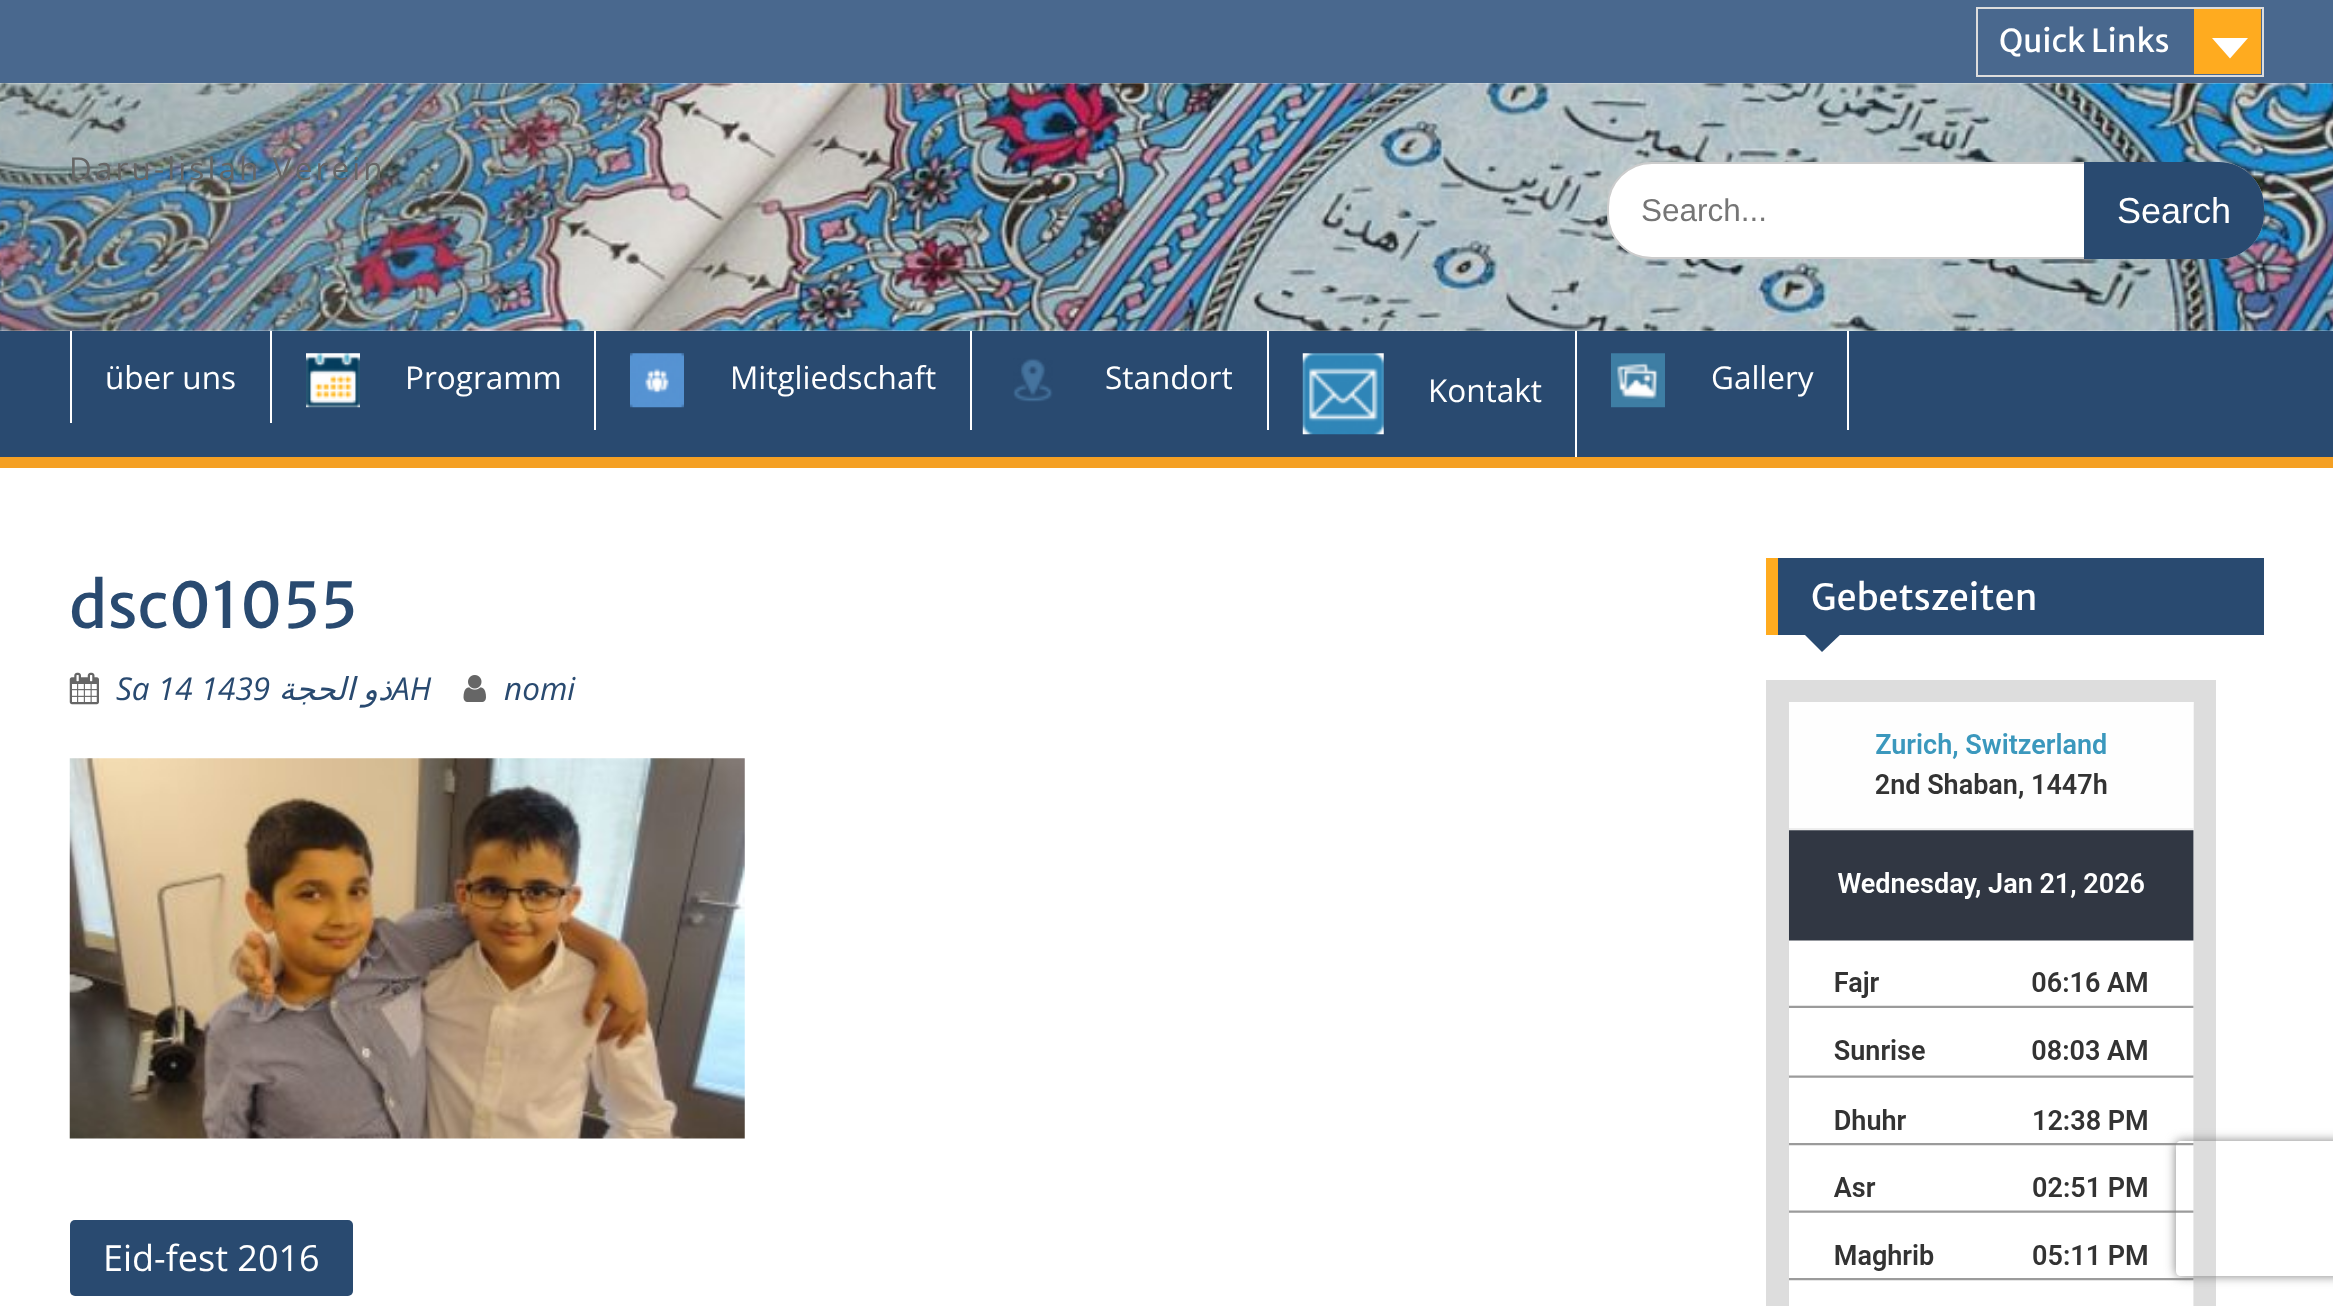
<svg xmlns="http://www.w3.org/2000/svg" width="2333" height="1306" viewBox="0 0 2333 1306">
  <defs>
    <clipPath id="clip1"><path d="M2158 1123H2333V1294H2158ZM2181 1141H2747C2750 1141 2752 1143 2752 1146V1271C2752 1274 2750 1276 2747 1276H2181C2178 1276 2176 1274 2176 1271V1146C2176 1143 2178 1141 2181 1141Z" clip-rule="evenodd"/></clipPath>
  </defs>
  <rect width="100%" height="100%" fill="#fff"/>
  <path d="M0 0h2333v83H0z" fill="#49688e"/>
  <path d="M1977 8h286v68H1977z" fill="none" stroke="#ddd" stroke-width="2"/>
  <path d="M2194 9h67v65H2194z" fill="#ffab1f"/>
  <path d="M2212 38H2248L2230 58.5Z" fill="#fff"/>
  <image x="0" y="83" width="2333" height="248" href="img/1.png"/>
  <rect x="1608" y="163" width="655" height="95" rx="44" fill="#fff" stroke="#ccc" stroke-width="2"/>
  <path d="M2084 162H2219C2244 162 2264 182 2264 207V214C2264 239 2244 259 2219 259H2084Z" fill="#294a70"/>
  <path d="M0 331h2333v126H0z" fill="#294a70"/>
  <path d="M0 457h2333v11H0z" fill="#f4a024"/>
  <path d="M270 331h2v92H270z" fill="#fff"/>
  <path d="M70 331h2v92H70z" fill="#fff"/>
  <path d="M594 331h2v99H594z" fill="#fff"/>
  <image x="306" y="353" width="54" height="55" href="img/2.png"/>
  <path d="M970 331h2v99H970z" fill="#fff"/>
  <image x="630" y="353" width="54" height="55" href="img/3.png"/>
  <path d="M1267 331h2v99H1267z" fill="#fff"/>
  <image x="1013" y="358" width="40" height="44" href="img/4.png"/>
  <path d="M1575 331h2v126H1575z" fill="#fff"/>
  <image x="1302" y="353" width="82" height="82" href="img/5.png"/>
  <path d="M1847 331h2v99H1847z" fill="#fff"/>
  <image x="1611" y="353" width="54" height="55" href="img/6.png"/>
  <image x="69" y="672" width="30" height="33" href="img/7.png"/>
  <image x="463" y="675" width="23" height="27" href="img/8.png"/>
  <image x="69" y="758" width="676" height="381" href="img/9.png"/>
  <rect x="70" y="1220" width="283" height="76" rx="5" fill="#294a70"/>
  <path d="M1778 558h486v77H1778z" fill="#294a70"/>
  <path d="M1766 558h12v77H1766z" fill="#ffab1f"/>
  <path d="M1802 632H1843L1822 652Z" fill="#294a70"/>
  <path d="M1777.5 691.5h427v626H1777.5z" fill="none" stroke="#ddd" stroke-width="23"/>
  <image x="1788" y="702" width="406" height="604" href="img/10.png"/>
  <g clip-path="url(#clip1)">
    <rect x="2176" y="1141" width="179" height="135" rx="5" fill="#808080" filter="blur(5.5px)"/>
  </g>
  <text x="1999" y="52" font-family="Merriweather Sans" font-size="31.5" fill="#fff">Quick Links</text>
  <text x="69" y="180" font-family="Open Sans" font-size="31.5" letter-spacing="3.1" fill="#666">Daru-lislah Verein</text>
  <text x="1641" y="221" font-family="Liberation Sans" font-size="31.5" fill="#757575">Search...</text>
  <text x="2117" y="223" font-family="Liberation Sans" font-size="36" fill="#fff">Search</text>
  <g font-family="Open Sans" font-size="31.5" fill="#fff">
    <text x="105" y="389">über uns</text>
    <text x="405" y="389">Programm</text>
    <text x="730" y="389">Mitgliedschaft</text>
    <text x="1105" y="389">Standort</text>
    <text x="1428" y="402">Kontakt</text>
    <text x="1711" y="389">Gallery</text>
  </g>
  <text x="69" y="628" font-family="Merriweather Sans" font-size="63" fill="#294a70">dsc01055</text>
  <text x="116" y="700" font-family="Open Sans" font-size="31.5" font-style="italic" fill="#294a70">Sa 14 1439</text>
  <text x="392" y="700" word-spacing="-2" font-family="DejaVu Sans" font-size="31.5" font-style="italic" direction="rtl" fill="#294a70">ذو الحجة</text>
  <g font-family="Open Sans" font-size="31.5" font-style="italic" fill="#294a70">
    <text x="392" y="700">AH</text>
    <text x="504" y="700">nomi</text>
  </g>
  <text x="103" y="1271" font-family="Open Sans" font-size="36" fill="#fff">Eid-fest 2016</text>
  <text x="1811" y="610" font-family="Merriweather Sans" font-size="36" fill="#fff">Gebetszeiten</text>
</svg>
